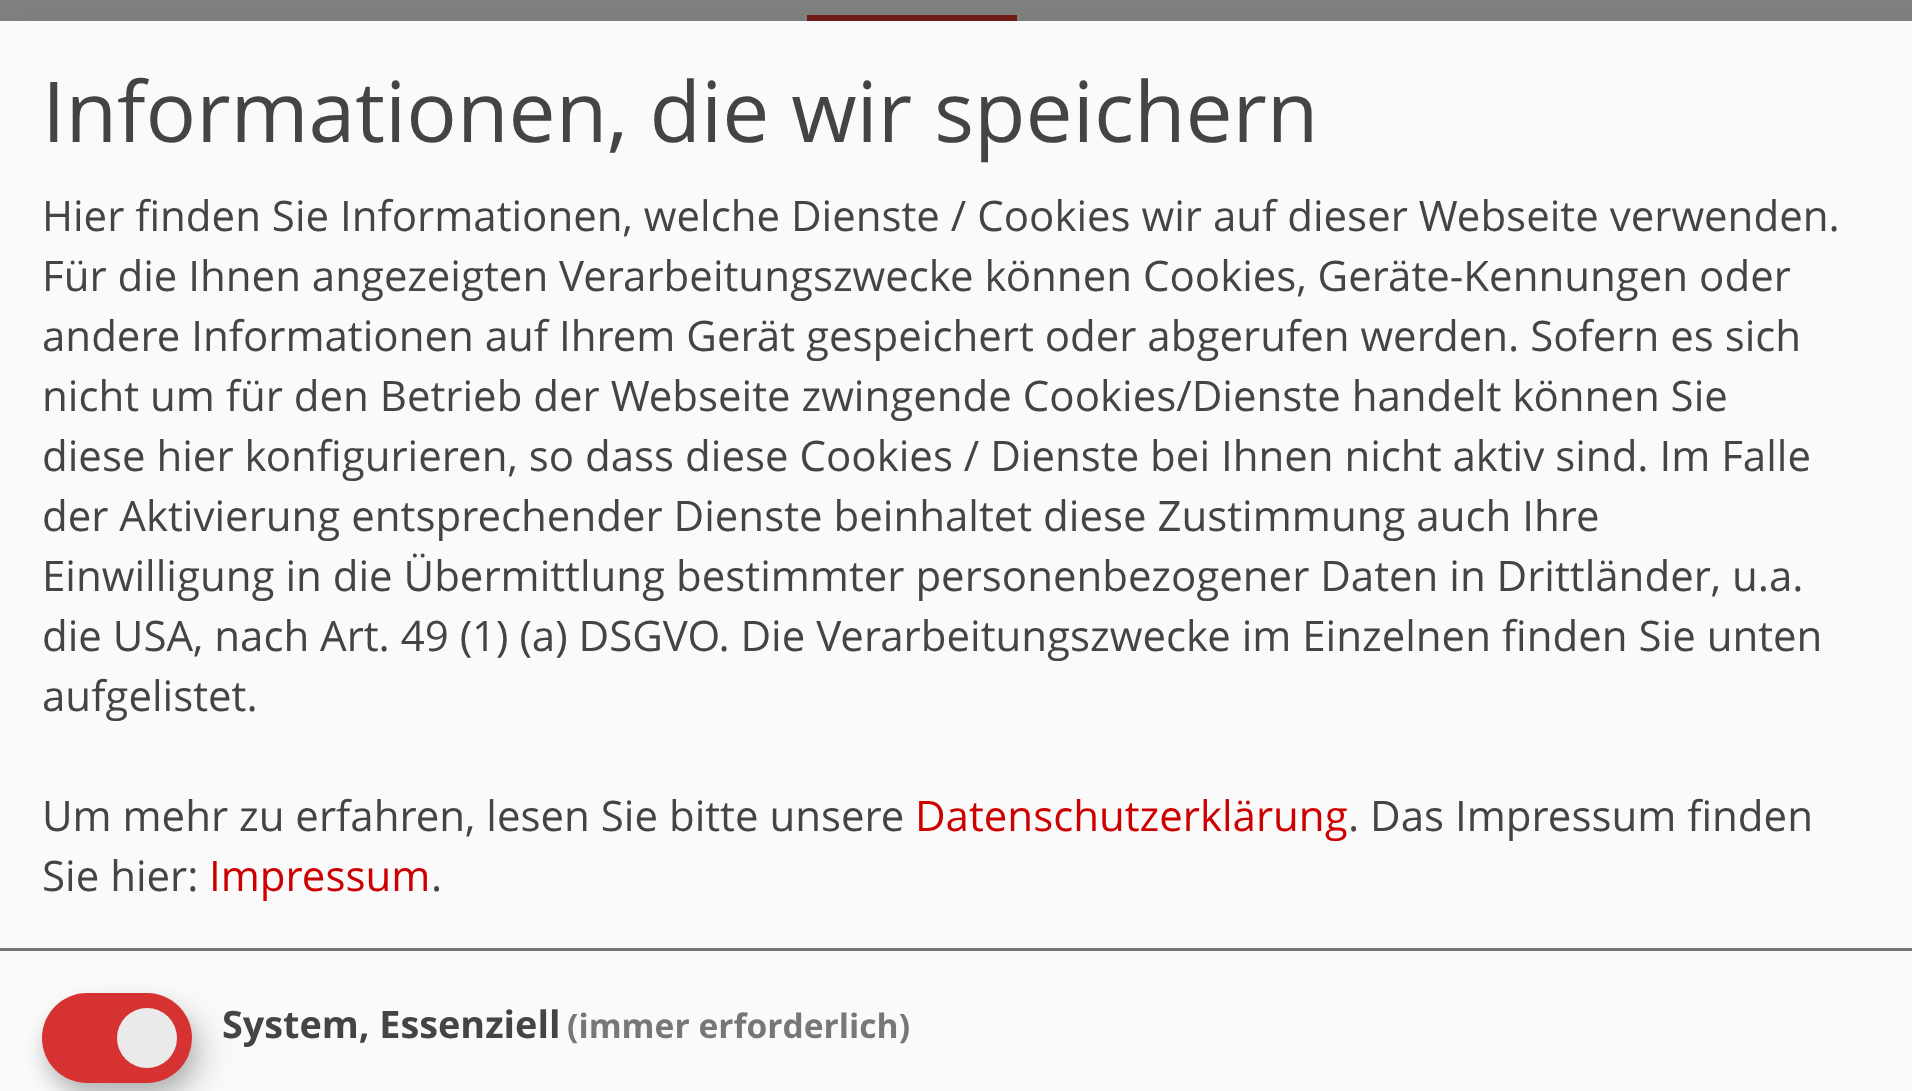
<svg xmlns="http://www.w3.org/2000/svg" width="1912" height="1091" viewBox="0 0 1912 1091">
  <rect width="100%" height="100%" fill="#808080"/>
  <image x="807" y="15" width="210" height="6" href="img/1.png"/>
  <path d="M15 36h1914v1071H15z" fill="#00000030" filter="blur(15px)"/>
  <path d="M0 21h1912v1070H0z" fill="#fafafa"/>
  <path d="M0 948h1912v3H0z" fill="#777"/>
  <rect x="57" y="1008" width="150" height="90" rx="45" fill="#00000026" filter="blur(15px)"/>
  <rect x="42" y="1005" width="150" height="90" rx="45" fill="#32323233" filter="blur(9px)"/>
  <rect x="42" y="993" width="150" height="90" rx="45" fill="#d63232"/>
  <circle cx="147" cy="1038" r="30" fill="#eaeaea"/>
  <text x="42" y="142" font-family="Open Sans" font-size="84" fill="#444">Informationen, die wir speichern</text>
  <g font-family="Open Sans" font-size="42" fill="#444">
    <text x="42" y="231">Hier finden Sie Informationen, welche Dienste / Cookies wir auf dieser Webseite verwenden.</text>
    <text x="42" y="291">Für die Ihnen angezeigten Verarbeitungszwecke können Cookies, Geräte-Kennungen oder</text>
    <text x="42" y="351">andere Informationen auf Ihrem Gerät gespeichert oder abgerufen werden. Sofern es sich</text>
    <text x="42" y="411">nicht um für den Betrieb der Webseite zwingende Cookies/Dienste handelt können Sie</text>
    <text x="42" y="471">diese hier konfigurieren, so dass diese Cookies / Dienste bei Ihnen nicht aktiv sind. Im Falle</text>
    <text x="42" y="531">der Aktivierung entsprechender Dienste beinhaltet diese Zustimmung auch Ihre</text>
    <text x="42" y="591">Einwilligung in die Übermittlung bestimmter personenbezogener Daten in Drittländer, u.a.</text>
    <text x="42" y="651">die USA, nach Art. 49 (1) (a) DSGVO. Die Verarbeitungszwecke im Einzelnen finden Sie unten</text>
    <text x="42" y="711">aufgelistet.</text>
    <text x="42" y="831">Um mehr zu erfahren, lesen Sie bitte unsere</text>
  </g>
  <text x="915" y="831" font-family="Open Sans" font-size="42" fill="#cd0000">Datenschutzerklärung</text>
  <g font-family="Open Sans" font-size="42" fill="#444">
    <text x="1348" y="831">. Das Impressum finden</text>
    <text x="42" y="891">Sie hier:</text>
  </g>
  <text x="209" y="891" font-family="Open Sans" font-size="42" fill="#cd0000">Impressum</text>
  <text x="431" y="891" font-family="Open Sans" font-size="42" fill="#444">.</text>
  <text x="222" y="1038" font-family="Open Sans" font-size="37.75" font-weight="bold" fill="#444">System, Essenziell</text>
  <text x="567" y="1038" font-family="Open Sans" font-size="33.6" font-weight="bold" fill="#777">(immer erforderlich)</text>
</svg>
